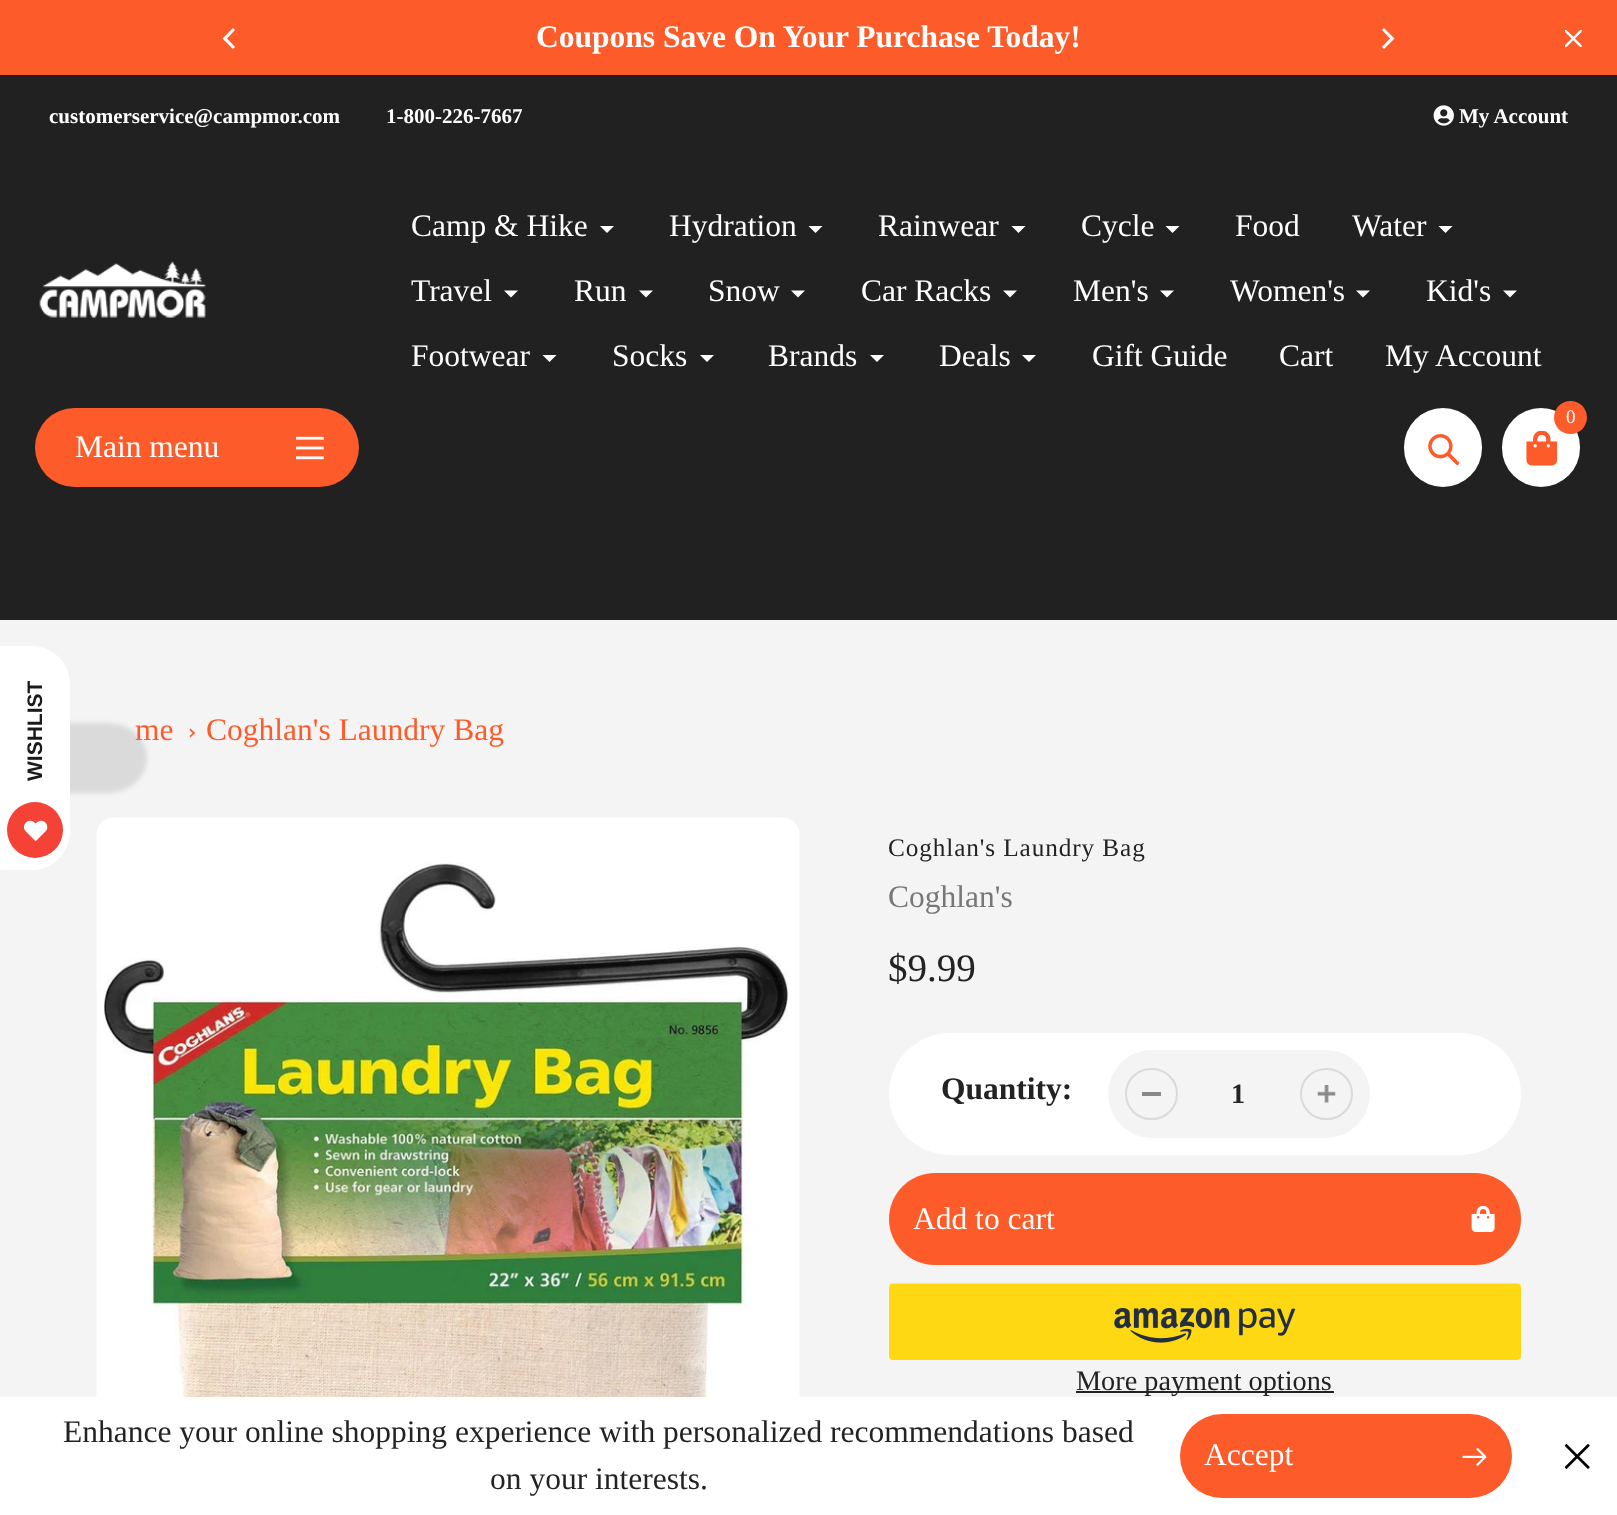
<svg xmlns="http://www.w3.org/2000/svg" width="1617" height="1515" viewBox="0 0 1617 1515">
  <rect width="100%" height="100%" fill="#f4f4f4"/>
  <path d="M0 0h1617v75H0z" fill="#fd5b2a"/>
  <path d="M222.5 38.5L233 49L235 47L227 38.5L235 30L233 28Z" fill="#fff"/>
  <path d="M1394.5 38.5L1384 28L1382 30L1390 38.5L1382 47L1384 49Z" fill="#fff"/>
  <image x="1565" y="30" width="17" height="17" href="img/1.png"/>
  <path d="M0 75h1617v545H0z" fill="#212121"/>
  <image x="1433" y="105" width="21" height="21" href="img/2.png"/>
  <image x="39" y="261" width="167" height="57" href="img/3.png"/>
  <path d="M614 226L607 233L600 226" fill="#fff"/>
  <path d="M822.5 226L815.5 233L808.5 226" fill="#fff"/>
  <path d="M1025.5 226L1018.5 233L1011.5 226" fill="#fff"/>
  <path d="M1179.5 226L1172.5 233L1165.5 226" fill="#fff"/>
  <path d="M1452.5 226L1445.5 233L1438.5 226" fill="#fff"/>
  <path d="M518 290.5L511 297.5L504 290.5" fill="#fff"/>
  <path d="M653 290.5L646 297.5L639 290.5" fill="#fff"/>
  <path d="M805 290.5L798 297.5L791 290.5" fill="#fff"/>
  <path d="M1017 290.5L1010 297.5L1003 290.5" fill="#fff"/>
  <path d="M1174 290.5L1167 297.5L1160 290.5" fill="#fff"/>
  <path d="M1370 290.5L1363 297.5L1356 290.5" fill="#fff"/>
  <path d="M1517 290.5L1510 297.5L1503 290.5" fill="#fff"/>
  <path d="M556.5 355L549.5 362L542.5 355" fill="#fff"/>
  <path d="M714 355L707 362L700 355" fill="#fff"/>
  <path d="M884 355L877 362L870 355" fill="#fff"/>
  <path d="M1036 355L1029 362L1022 355" fill="#fff"/>
  <rect x="1404" y="408" width="78" height="79" rx="39" fill="#fff"/>
  <image x="1428" y="434" width="32" height="31" href="img/4.png"/>
  <rect x="1502" y="408" width="78" height="79" rx="39" fill="#fff"/>
  <image x="1526" y="431" width="32" height="35" href="img/5.png"/>
  <circle cx="1570.5" cy="417.5" r="16.5" fill="#fd5b2a"/>
  <rect x="35" y="408" width="324" height="79" rx="39.5" fill="#fd5b2a"/>
  <image x="296" y="436" width="28" height="24" href="img/6.png"/>
  <rect x="-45" y="723" width="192" height="70" rx="39" fill="#dadada" filter="blur(2px)"/>
  <path d="M0 870V646H32C53 646 70 663 70 684V831C70 852 53 870 32 870Z" fill="#fff"/>
  <circle cx="35" cy="830" r="28" fill="#f44336"/>
  <image x="23" y="820" width="25" height="21" href="img/7.png"/>
  <path d="M190.5 728.5L195 733L194 734.5L189.5 730Z" fill="#fd5b2a"/>
  <path d="M194 732L195 733L190.5 737.5L189.5 736Z" fill="#fd5b2a"/>
  <image x="96" y="817" width="704" height="580" href="img/8.png"/>
  <rect x="889" y="1033" width="632" height="122" rx="61" fill="#fff"/>
  <rect x="1108" y="1050" width="262" height="88" rx="44" fill="#f4f4f4"/>
  <path d="M1142 1092h19v4H1142z" fill="#898989"/>
  <rect x="1126" y="1069" width="51" height="50" rx="25" fill="none" stroke="#d7dbdb" stroke-width="2"/>
  <image x="1317" y="1085" width="19" height="18" href="img/9.png"/>
  <rect x="1301" y="1069" width="51" height="50" rx="25" fill="none" stroke="#d7dbdb" stroke-width="2"/>
  <rect x="889" y="1173" width="632" height="92" rx="46" fill="#fd5b2a"/>
  <image x="1471" y="1206" width="24" height="26" href="img/10.png"/>
  <rect x="889" y="1283" width="632" height="77" rx="4" fill="#ffd814"/>
  <path d="M892 1284H1517C1519 1284 1521 1286 1521 1288C1521 1285 1520 1283 1517 1283H893C890 1283 889 1285 889 1288C889 1286 891 1284 892 1284Z" fill="#ffffff66"/>
  <image x="1114" y="1308" width="182" height="35" href="img/11.png"/>
  <path d="M1076 1391h258v2H1076z" fill="#232323"/>
  <path d="M0 1397h1617v118H0z" fill="#fff"/>
  <rect x="1180" y="1414" width="332" height="84" rx="42" fill="#fd5b2a"/>
  <image x="1462" y="1447" width="25" height="19" href="img/12.png"/>
  <image x="1565" y="1444" width="25" height="25" href="img/13.png"/>
  <text x="536" y="47" font-family="Liberation Serif" font-size="31.5" font-weight="bold" fill="#fff">Coupons Save On Your Purchase Today!</text>
  <g font-family="Liberation Serif" font-size="21" font-weight="bold" fill="#fff">
    <text x="49" y="123">customerservice@campmor.com</text>
    <text x="386" y="123">1-800-226-7667</text>
    <text x="1459" y="123">My Account</text>
  </g>
  <g font-family="Liberation Serif" font-size="31.5" fill="#fff">
    <text x="411" y="236">Camp &amp; Hike</text>
    <text x="669" y="236">Hydration</text>
    <text x="878" y="236">Rainwear</text>
    <text x="1081" y="236">Cycle</text>
    <text x="1235" y="236">Food</text>
    <text x="1352" y="236">Water</text>
    <text x="411" y="301">Travel</text>
    <text x="574" y="301">Run</text>
    <text x="708" y="301">Snow</text>
    <text x="861" y="301">Car Racks</text>
    <text x="1073" y="301">Men's</text>
    <text x="1230" y="301">Women's</text>
    <text x="1426" y="301">Kid's</text>
    <text x="411" y="366">Footwear</text>
    <text x="612" y="366">Socks</text>
    <text x="768" y="366">Brands</text>
    <text x="939" y="366">Deals</text>
    <text x="1092" y="366">Gift Guide</text>
    <text x="1279" y="366">Cart</text>
    <text x="1385" y="366">My Account</text>
  </g>
  <text x="1566" y="423" font-family="Liberation Serif" font-size="19" fill="#fff">0</text>
  <text x="75" y="457" font-family="Liberation Serif" font-size="31.5" fill="#fff">Main menu</text>
  <text x="42" y="781" transform="rotate(-90 42 781)" font-family="Liberation Sans" font-size="21" font-weight="bold" fill="#1a1a1a">WISHLIST</text>
  <g font-family="Liberation Serif" font-size="31.5" fill="#fd5b2a">
    <text x="135" y="740">me</text>
    <text x="206" y="740">Coghlan's Laundry Bag</text>
  </g>
  <text x="888" y="856" font-family="Liberation Serif" font-size="25.25" letter-spacing="0.9" fill="#232323">Coghlan's Laundry Bag</text>
  <text x="888" y="907" font-family="Liberation Serif" font-size="31.5" fill="#777">Coghlan's</text>
  <text x="888" y="981" font-family="Liberation Serif" font-size="39" fill="#232323">$9.99</text>
  <text x="941" y="1099" font-family="Liberation Serif" font-size="31.5" font-weight="bold" fill="#232323">Quantity:</text>
  <text x="1231" y="1103" font-family="Liberation Serif" font-size="28" font-weight="bold" fill="#232323">1</text>
  <text x="913" y="1229" font-family="Liberation Serif" font-size="31.5" fill="#fff">Add to cart</text>
  <text x="1076" y="1390" font-family="Liberation Serif" font-size="28.25" fill="#232323">More payment options</text>
  <g font-family="Liberation Serif" font-size="31.5" fill="#232323">
    <text x="63" y="1442">Enhance your online shopping experience with personalized recommendations based</text>
    <text x="490" y="1489">on your interests.</text>
  </g>
  <text x="1204" y="1465" font-family="Liberation Serif" font-size="31.5" fill="#fff">Accept</text>
</svg>
